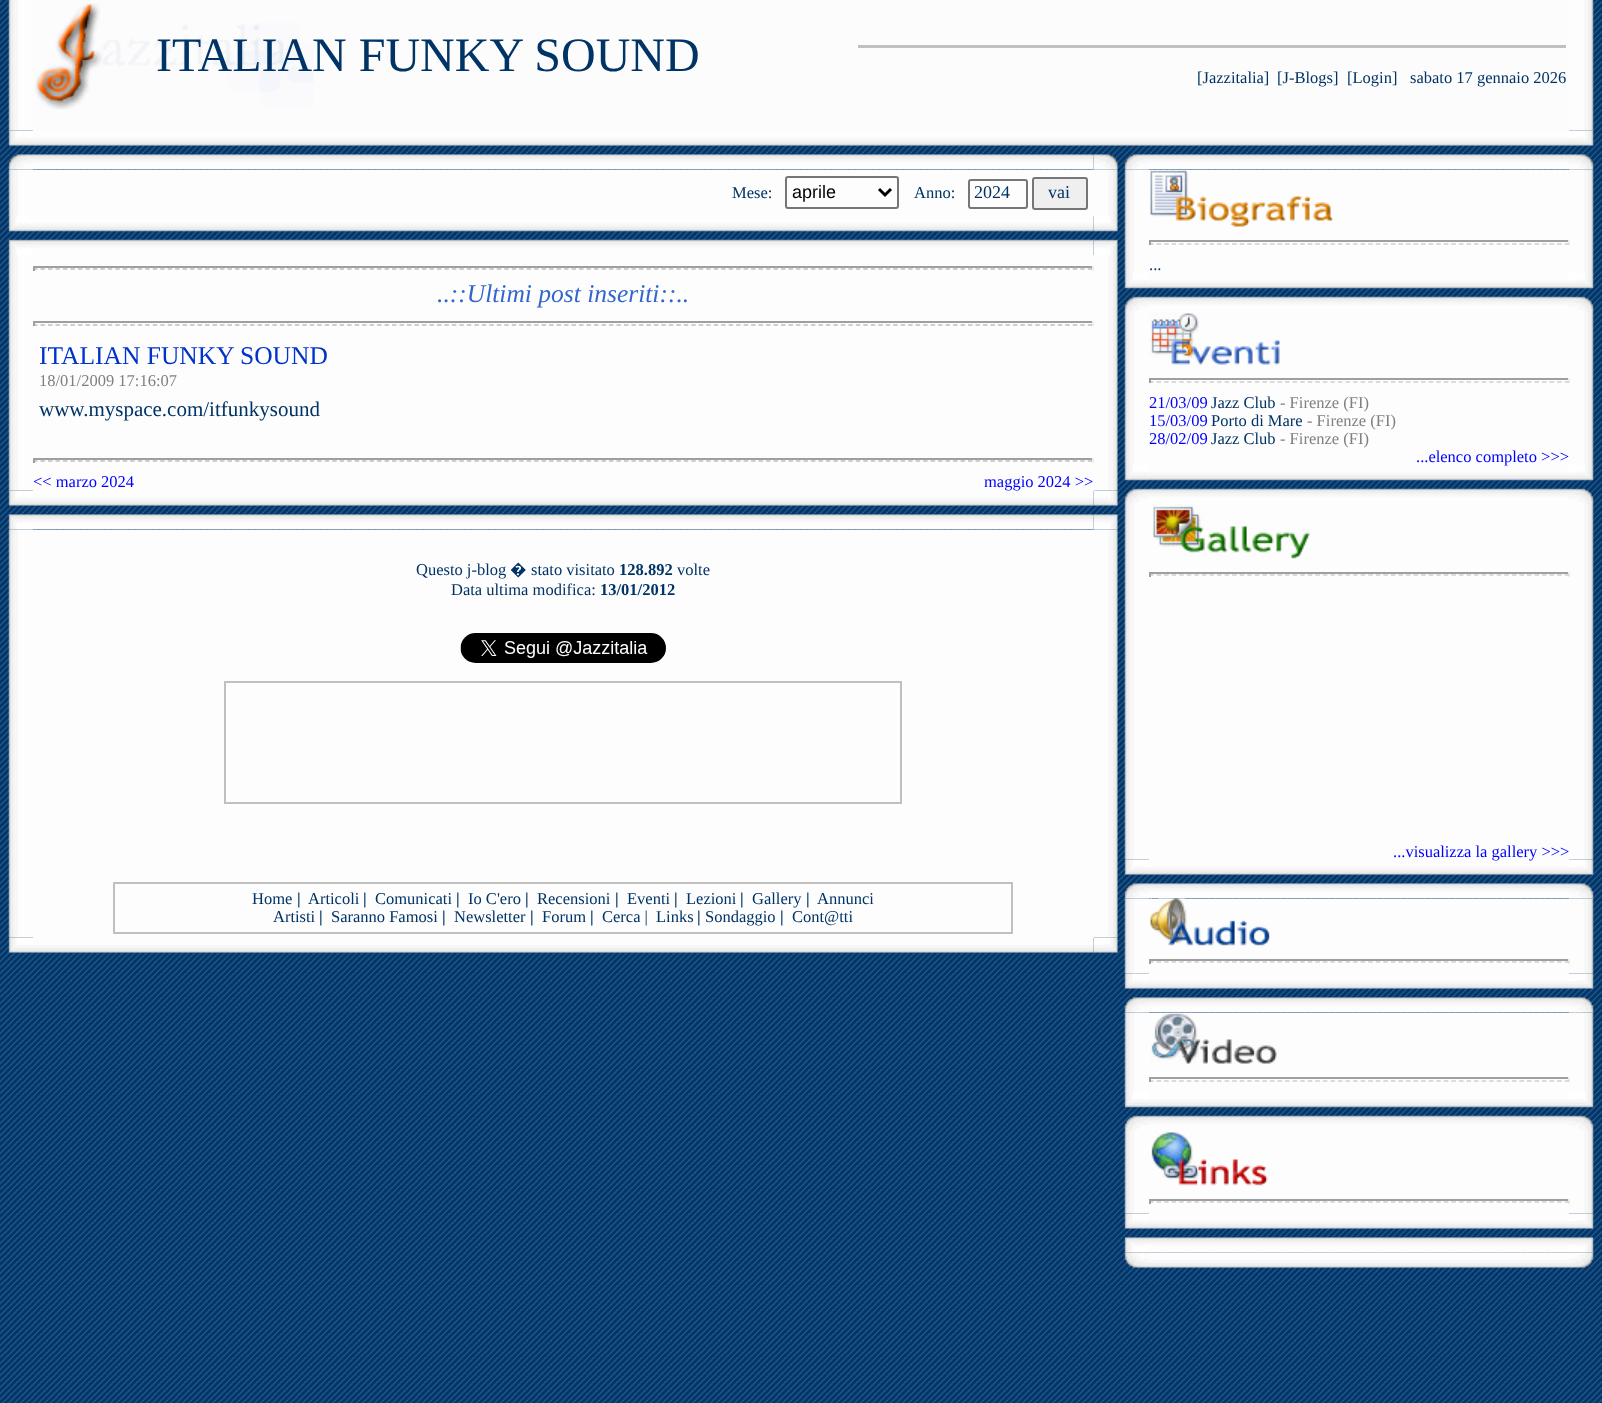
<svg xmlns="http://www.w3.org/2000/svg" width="1602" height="1403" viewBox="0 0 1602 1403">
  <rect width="100%" height="100%" fill="#fff"/>
  <image x="0" y="0" width="1602" height="1403" href="img/1.png"/>
  <image x="8" y="0" width="25" height="131" href="img/2.png"/>
  <path d="M33 0h1536v131H33z" fill="#fcfcfc"/>
  <image x="35" y="3" width="279" height="107" href="img/3.png"/>
  <path d="M858 45h708v3H858z" fill="#c0c0c0"/>
  <image x="1569" y="0" width="25" height="131" href="img/4.png"/>
  <image x="8" y="130" width="25" height="16" href="img/5.png"/>
  <image x="33" y="131" width="1536" height="15" href="img/6.png"/>
  <image x="1569" y="130" width="25" height="16" href="img/7.png"/>
  <image x="8" y="169" width="25" height="47" href="img/11.png"/>
  <image x="8" y="154" width="25" height="16" href="img/8.png"/>
  <image x="33" y="154" width="1061" height="16" href="img/9.png"/>
  <image x="1093" y="154" width="25" height="16" href="img/10.png"/>
  <path d="M33 170h1061v46H33z" fill="#fdfdfd"/>
  <rect x="786" y="177" width="112" height="31" rx="2" fill="none" stroke="#767676" stroke-width="2"/>
  <path d="M879 189L885 195L891 189" fill="none" stroke="#000" stroke-width="3"/>
  <rect x="969" y="180" width="58" height="28" rx="2" fill="none" stroke="#767676" stroke-width="2"/>
  <rect x="1033" y="178" width="54" height="31" rx="2" fill="#efefef" stroke="#767676" stroke-width="2"/>
  <image x="1093" y="169" width="25" height="47" href="img/12.png"/>
  <image x="8" y="216" width="25" height="16" href="img/13.png"/>
  <image x="33" y="216" width="1061" height="16" href="img/14.png"/>
  <image x="1093" y="216" width="25" height="16" href="img/15.png"/>
  <image x="8" y="239" width="25" height="16" href="img/16.png"/>
  <image x="33" y="239" width="1061" height="16" href="img/17.png"/>
  <image x="1093" y="239" width="25" height="16" href="img/18.png"/>
  <image x="8" y="255" width="25" height="236" href="img/19.png"/>
  <path d="M33 255h1061v236H33z" fill="#fdfdfd"/>
  <path d="M33 266h1061v2H33z" fill="#9f9f9f"/>
  <path d="M1092 266h2v5H1092z" fill="#eee"/>
  <path d="M33 269H1093.5" fill="none" stroke="#c0c0c0" stroke-width="1.5" stroke-dasharray="4.5 2.98"/>
  <path d="M33 266h2v5H33z" fill="#9f9f9f"/>
  <path d="M33 321h1061v2H33z" fill="#9f9f9f"/>
  <path d="M1092 321h2v5H1092z" fill="#eee"/>
  <path d="M33 325H1093.5" fill="none" stroke="#c0c0c0" stroke-width="1.5" stroke-dasharray="4.5 2.98"/>
  <path d="M33 321h2v5H33z" fill="#9f9f9f"/>
  <path d="M33 458h1061v2H33z" fill="#9f9f9f"/>
  <path d="M1092 458h2v5H1092z" fill="#eee"/>
  <path d="M33 461H1093.5" fill="none" stroke="#c0c0c0" stroke-width="1.5" stroke-dasharray="4.5 2.98"/>
  <path d="M33 458h2v5H33z" fill="#9f9f9f"/>
  <image x="1094" y="255" width="24" height="236" href="img/20.png"/>
  <image x="8" y="490" width="25" height="16" href="img/5.png"/>
  <image x="33" y="491" width="1061" height="15" href="img/21.png"/>
  <image x="1093" y="490" width="25" height="16" href="img/22.png"/>
  <image x="8" y="529" width="25" height="409" href="img/25.png"/>
  <image x="8" y="514" width="25" height="16" href="img/23.png"/>
  <image x="33" y="514" width="1061" height="16" href="img/9.png"/>
  <image x="1093" y="514" width="25" height="16" href="img/24.png"/>
  <path d="M33 530h1061v408H33z" fill="#fdfdfd"/>
  <image x="460" y="633" width="206" height="30" href="img/26.png"/>
  <path d="M225 682h676v121H225z" fill="none" stroke="#c0c0c0" stroke-width="2"/>
  <path d="M113 882h900v2H113z" fill="#c0c0c0"/>
  <path d="M1011 882h2v51H1011z" fill="#c0c0c0"/>
  <path d="M113 932h900v2H113z" fill="#c0c0c0"/>
  <path d="M113 882h2v51H113z" fill="#c0c0c0"/>
  <image x="1093" y="529" width="25" height="409" href="img/27.png"/>
  <image x="8" y="937" width="25" height="16" href="img/28.png"/>
  <image x="33" y="938" width="1061" height="15" href="img/29.png"/>
  <image x="1093" y="937" width="25" height="16" href="img/30.png"/>
  <image x="1124" y="169" width="25" height="104" href="img/34.png"/>
  <image x="1124" y="154" width="25" height="16" href="img/31.png"/>
  <image x="1149" y="154" width="420" height="16" href="img/32.png"/>
  <image x="1569" y="154" width="25" height="16" href="img/33.png"/>
  <path d="M1149 170h420v103H1149z" fill="#fdfdfd"/>
  <image x="1149" y="170" width="184" height="57" href="img/35.png"/>
  <path d="M1149 240h420v2H1149z" fill="#9f9f9f"/>
  <image x="1569" y="169" width="25" height="104" href="img/36.png"/>
  <path d="M1568 240h2v5H1568z" fill="#eee"/>
  <path d="M1149 244H1569" fill="none" stroke="#d0d0d0" stroke-width="1.5" stroke-dasharray="4.5 3.06"/>
  <path d="M1149 240h2v5H1149z" fill="#9f9f9f"/>
  <image x="1124" y="273" width="25" height="16" href="img/37.png"/>
  <image x="1149" y="273" width="420" height="16" href="img/38.png"/>
  <image x="1569" y="273" width="25" height="16" href="img/39.png"/>
  <image x="1124" y="296" width="25" height="16" href="img/40.png"/>
  <image x="1149" y="296" width="420" height="16" href="img/41.png"/>
  <image x="1569" y="296" width="25" height="16" href="img/42.png"/>
  <image x="1124" y="312" width="25" height="153" href="img/43.png"/>
  <path d="M1149 312h420v153H1149z" fill="#fdfdfd"/>
  <image x="1149" y="312" width="131" height="53" href="img/44.png"/>
  <path d="M1149 378h420v2H1149z" fill="#9f9f9f"/>
  <image x="1569" y="312" width="25" height="153" href="img/45.png"/>
  <path d="M1568 378h2v5H1568z" fill="#eee"/>
  <path d="M1149 382H1569" fill="none" stroke="#d0d0d0" stroke-width="1.5" stroke-dasharray="4.5 3.06"/>
  <path d="M1149 378h2v5H1149z" fill="#9f9f9f"/>
  <image x="1124" y="465" width="25" height="16" href="img/46.png"/>
  <image x="1149" y="465" width="420" height="16" href="img/47.png"/>
  <image x="1569" y="465" width="25" height="16" href="img/48.png"/>
  <image x="1124" y="488" width="25" height="16" href="img/49.png"/>
  <image x="1149" y="488" width="420" height="16" href="img/41.png"/>
  <image x="1569" y="488" width="25" height="16" href="img/50.png"/>
  <image x="1124" y="504" width="25" height="356" href="img/51.png"/>
  <path d="M1149 504h420v356H1149z" fill="#fdfdfd"/>
  <image x="1152" y="504" width="158" height="55" href="img/52.png"/>
  <path d="M1149 572h420v2H1149z" fill="#9f9f9f"/>
  <image x="1569" y="504" width="25" height="356" href="img/53.png"/>
  <path d="M1568 572h2v5H1568z" fill="#eee"/>
  <path d="M1149 575H1569" fill="none" stroke="#d0d0d0" stroke-width="1.5" stroke-dasharray="4.5 3.06"/>
  <path d="M1149 572h2v5H1149z" fill="#9f9f9f"/>
  <image x="1124" y="859" width="25" height="16" href="img/54.png"/>
  <image x="1149" y="860" width="420" height="15" href="img/55.png"/>
  <image x="1569" y="859" width="25" height="16" href="img/56.png"/>
  <image x="1124" y="898" width="25" height="76" href="img/60.png"/>
  <image x="1124" y="883" width="25" height="16" href="img/57.png"/>
  <image x="1149" y="883" width="420" height="16" href="img/58.png"/>
  <image x="1569" y="883" width="25" height="16" href="img/59.png"/>
  <path d="M1149 899h420v75H1149z" fill="#fdfdfd"/>
  <image x="1150" y="898" width="120" height="48" href="img/61.png"/>
  <path d="M1149 959h420v2H1149z" fill="#9f9f9f"/>
  <image x="1569" y="898" width="25" height="76" href="img/62.png"/>
  <path d="M1568 959h2v5H1568z" fill="#eee"/>
  <path d="M1149 962H1569" fill="none" stroke="#d0d0d0" stroke-width="1.5" stroke-dasharray="4.5 3.06"/>
  <path d="M1149 959h2v5H1149z" fill="#9f9f9f"/>
  <image x="1124" y="973" width="25" height="16" href="img/63.png"/>
  <image x="1149" y="974" width="420" height="15" href="img/64.png"/>
  <image x="1569" y="973" width="25" height="16" href="img/65.png"/>
  <image x="1124" y="1012" width="25" height="80" href="img/69.png"/>
  <image x="1124" y="997" width="25" height="16" href="img/66.png"/>
  <image x="1149" y="997" width="420" height="16" href="img/67.png"/>
  <image x="1569" y="997" width="25" height="16" href="img/68.png"/>
  <path d="M1149 1013h420v79H1149z" fill="#fdfdfd"/>
  <image x="1149" y="1013" width="128" height="51" href="img/70.png"/>
  <path d="M1149 1077h420v2H1149z" fill="#9f9f9f"/>
  <image x="1569" y="1012" width="25" height="80" href="img/71.png"/>
  <path d="M1568 1077h2v5H1568z" fill="#eee"/>
  <path d="M1149 1081H1569" fill="none" stroke="#d0d0d0" stroke-width="1.5" stroke-dasharray="4.5 3.06"/>
  <path d="M1149 1077h2v5H1149z" fill="#9f9f9f"/>
  <image x="1124" y="1092" width="25" height="16" href="img/72.png"/>
  <image x="1149" y="1092" width="420" height="16" href="img/73.png"/>
  <image x="1569" y="1092" width="25" height="16" href="img/74.png"/>
  <image x="1124" y="1115" width="25" height="16" href="img/75.png"/>
  <image x="1149" y="1115" width="420" height="16" href="img/76.png"/>
  <image x="1569" y="1115" width="25" height="16" href="img/77.png"/>
  <image x="1124" y="1131" width="25" height="83" href="img/78.png"/>
  <path d="M1149 1131h420v83H1149z" fill="#fdfdfd"/>
  <image x="1149" y="1132" width="119" height="54" href="img/79.png"/>
  <path d="M1149 1199h420v2H1149z" fill="#9f9f9f"/>
  <image x="1569" y="1131" width="25" height="83" href="img/80.png"/>
  <path d="M1568 1199h2v5H1568z" fill="#eee"/>
  <path d="M1149 1202H1569" fill="none" stroke="#d0d0d0" stroke-width="1.5" stroke-dasharray="4.5 3.06"/>
  <path d="M1149 1199h2v5H1149z" fill="#9f9f9f"/>
  <image x="1124" y="1213" width="25" height="16" href="img/81.png"/>
  <image x="1149" y="1214" width="420" height="15" href="img/82.png"/>
  <image x="1569" y="1213" width="25" height="16" href="img/83.png"/>
  <image x="1124" y="1237" width="25" height="16" href="img/84.png"/>
  <image x="1149" y="1237" width="420" height="16" href="img/85.png"/>
  <image x="1569" y="1237" width="25" height="16" href="img/86.png"/>
  <image x="1124" y="1252" width="25" height="16" href="img/87.png"/>
  <image x="1149" y="1252" width="420" height="16" href="img/88.png"/>
  <image x="1569" y="1252" width="25" height="16" href="img/89.png"/>
  <text x="156" y="71" font-family="Liberation Serif" font-size="48" fill="#036">ITALIAN FUNKY SOUND</text>
  <g font-family="Liberation Serif" font-size="16.5" fill="#036">
    <text x="1197" y="83">[Jazzitalia]</text>
    <text x="1277" y="83">[J-Blogs]</text>
    <text x="1347" y="83">[Login]</text>
    <text x="1410" y="83">sabato 17 gennaio 2026</text>
    <text x="732" y="198">Mese:</text>
  </g>
  <text x="792" y="198" font-family="Liberation Sans" font-size="18" fill="#000">aprile</text>
  <text x="914" y="198" font-family="Liberation Serif" font-size="16.5" fill="#036">Anno:</text>
  <g font-family="Liberation Serif" font-size="18" fill="#036">
    <text x="974" y="198">2024</text>
    <text x="1048" y="198">vai</text>
  </g>
  <text x="437" y="302" font-family="Liberation Serif" font-size="25.5" font-style="italic" fill="#36c">..::Ultimi post inseriti::..</text>
  <text x="39" y="364" font-family="Liberation Serif" font-size="25.5" fill="#03c">ITALIAN FUNKY SOUND</text>
  <text x="39" y="386" font-family="Liberation Serif" font-size="16.5" fill="#808080">18/01/2009 17:16:07</text>
  <text x="39" y="416" font-family="Liberation Serif" font-size="21" fill="#036">www.myspace.com/itfunkysound</text>
  <g font-family="Liberation Serif" font-size="16.5" fill="#00f">
    <text x="33" y="487">&lt;&lt; marzo 2024</text>
    <text x="984" y="487">maggio 2024 &gt;&gt;</text>
  </g>
  <text x="416" y="575" font-family="Liberation Serif" font-size="16.5" fill="#036">Questo j-blog</text>
  <text x="510" y="575" font-family="Noto Sans" font-size="16.5" fill="#036">�</text>
  <text x="531" y="575" font-family="Liberation Serif" font-size="16.5" fill="#036">stato visitato</text>
  <text x="619" y="575" font-family="Liberation Serif" font-size="16.5" font-weight="bold" fill="#036">128.892</text>
  <g font-family="Liberation Serif" font-size="16.5" fill="#036">
    <text x="677" y="575">volte</text>
    <text x="451" y="595">Data ultima modifica:</text>
  </g>
  <text x="600" y="595" font-family="Liberation Serif" font-size="16.5" font-weight="bold" fill="#036">13/01/2012</text>
  <text x="252" y="904" font-family="Liberation Serif" font-size="16.5" fill="#036">Home</text>
  <text x="297" y="904" font-family="Liberation Serif" font-size="16.5" font-weight="bold" fill="#036">|</text>
  <text x="308" y="904" font-family="Liberation Serif" font-size="16.5" fill="#036">Articoli</text>
  <text x="363" y="904" font-family="Liberation Serif" font-size="16.5" font-weight="bold" fill="#036">|</text>
  <text x="375" y="904" font-family="Liberation Serif" font-size="16.5" fill="#036">Comunicati</text>
  <text x="456" y="904" font-family="Liberation Serif" font-size="16.5" font-weight="bold" fill="#036">|</text>
  <text x="468" y="904" font-family="Liberation Serif" font-size="16.5" fill="#036">Io C'ero</text>
  <text x="525" y="904" font-family="Liberation Serif" font-size="16.5" font-weight="bold" fill="#036">|</text>
  <text x="537" y="904" font-family="Liberation Serif" font-size="16.5" fill="#036">Recensioni</text>
  <text x="615" y="904" font-family="Liberation Serif" font-size="16.5" font-weight="bold" fill="#036">|</text>
  <text x="627" y="904" font-family="Liberation Serif" font-size="16.5" fill="#036">Eventi</text>
  <text x="674" y="904" font-family="Liberation Serif" font-size="16.5" font-weight="bold" fill="#036">|</text>
  <text x="686" y="904" font-family="Liberation Serif" font-size="16.5" fill="#036">Lezioni</text>
  <text x="740" y="904" font-family="Liberation Serif" font-size="16.5" font-weight="bold" fill="#036">|</text>
  <text x="752" y="904" font-family="Liberation Serif" font-size="16.5" fill="#036">Gallery</text>
  <text x="806" y="904" font-family="Liberation Serif" font-size="16.5" font-weight="bold" fill="#036">|</text>
  <g font-family="Liberation Serif" font-size="16.5" fill="#036">
    <text x="817" y="904">Annunci</text>
    <text x="273" y="922">Artisti</text>
  </g>
  <text x="319" y="922" font-family="Liberation Serif" font-size="16.5" font-weight="bold" fill="#036">|</text>
  <text x="331" y="922" font-family="Liberation Serif" font-size="16.5" fill="#036">Saranno Famosi</text>
  <text x="442" y="922" font-family="Liberation Serif" font-size="16.5" font-weight="bold" fill="#036">|</text>
  <text x="454" y="922" font-family="Liberation Serif" font-size="16.5" fill="#036">Newsletter</text>
  <text x="530" y="922" font-family="Liberation Serif" font-size="16.5" font-weight="bold" fill="#036">|</text>
  <text x="542" y="922" font-family="Liberation Serif" font-size="16.5" fill="#036">Forum</text>
  <text x="590" y="922" font-family="Liberation Serif" font-size="16.5" font-weight="bold" fill="#036">|</text>
  <g font-family="Liberation Serif" font-size="16.5" fill="#036">
    <text x="602" y="922">Cerca |</text>
    <text x="656" y="922">Links</text>
  </g>
  <text x="697" y="922" font-family="Liberation Serif" font-size="16.5" font-weight="bold" fill="#036">|</text>
  <text x="705" y="922" font-family="Liberation Serif" font-size="16.5" fill="#036">Sondaggio</text>
  <text x="780" y="922" font-family="Liberation Serif" font-size="16.5" font-weight="bold" fill="#036">|</text>
  <g font-family="Liberation Serif" font-size="16.5" fill="#036">
    <text x="792" y="922">Cont@tti</text>
    <text x="1149" y="270">...</text>
  </g>
  <text x="1149" y="408" font-family="Liberation Serif" font-size="16.5" fill="#00f">21/03/09</text>
  <text x="1211" y="408" font-family="Liberation Serif" font-size="16.5" fill="#036">Jazz Club</text>
  <text x="1280" y="408" font-family="Liberation Serif" font-size="16.5" fill="#808080">- Firenze (FI)</text>
  <text x="1149" y="426" font-family="Liberation Serif" font-size="16.5" fill="#00f">15/03/09</text>
  <text x="1211" y="426" font-family="Liberation Serif" font-size="16.5" fill="#036">Porto di Mare</text>
  <text x="1307" y="426" font-family="Liberation Serif" font-size="16.5" fill="#808080">- Firenze (FI)</text>
  <text x="1149" y="444" font-family="Liberation Serif" font-size="16.5" fill="#00f">28/02/09</text>
  <text x="1211" y="444" font-family="Liberation Serif" font-size="16.5" fill="#036">Jazz Club</text>
  <text x="1280" y="444" font-family="Liberation Serif" font-size="16.5" fill="#808080">- Firenze (FI)</text>
  <g font-family="Liberation Serif" font-size="16.5" fill="#00f">
    <text x="1416" y="462">...elenco completo &gt;&gt;&gt;</text>
    <text x="1393" y="857">...visualizza la gallery &gt;&gt;&gt;</text>
  </g>
</svg>
